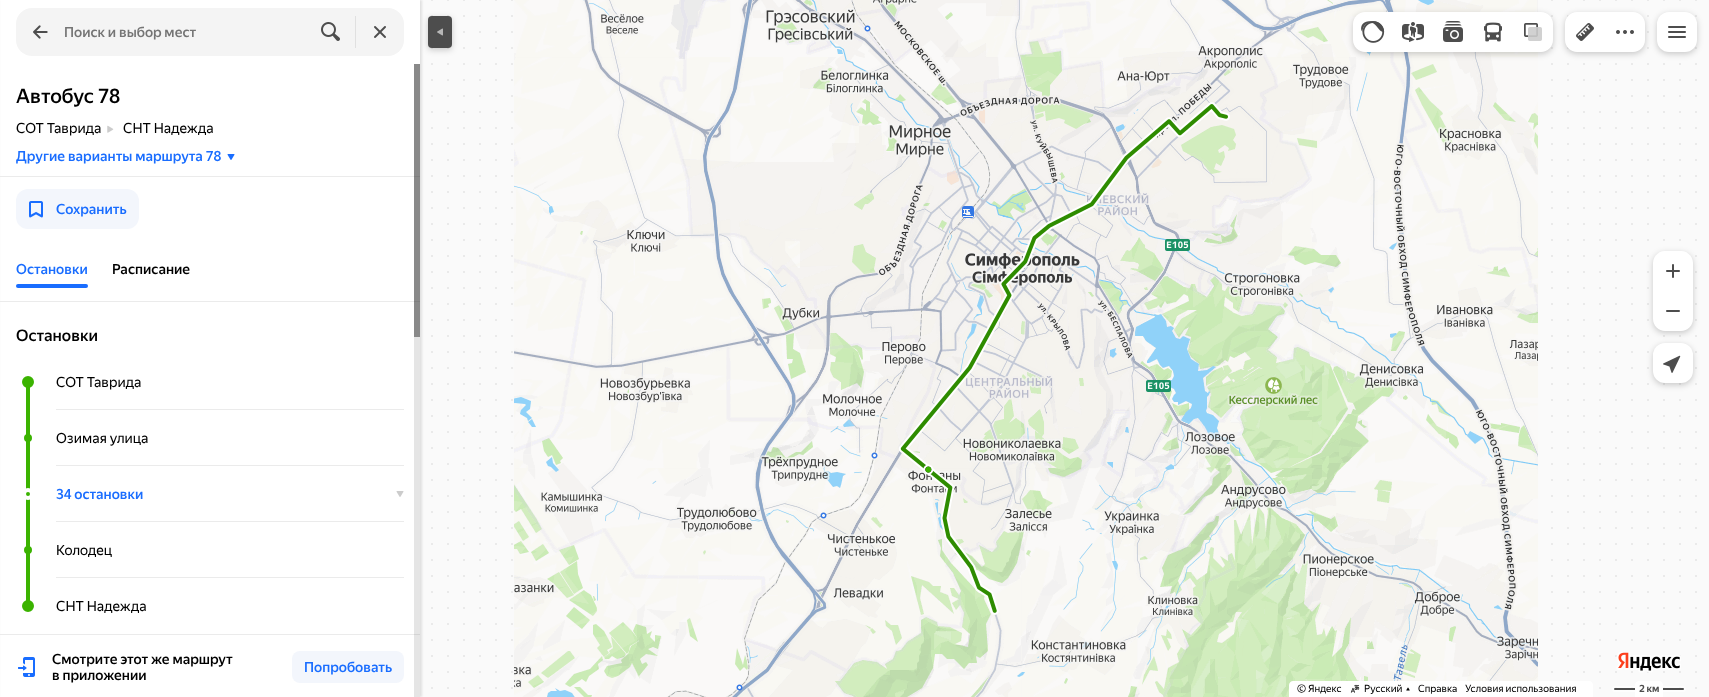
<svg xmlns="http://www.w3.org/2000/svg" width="1709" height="697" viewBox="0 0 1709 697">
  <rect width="100%" height="100%" fill="#fff"/>
  <image x="420" y="0" width="1289" height="697" href="img/1.png"/>
  <image x="514" y="0" width="256" height="179" href="img/2.png"/>
  <image x="770" y="0" width="256" height="179" href="img/3.png"/>
  <image x="1026" y="0" width="256" height="179" href="img/4.png"/>
  <image x="1282" y="0" width="256" height="179" href="img/5.png"/>
  <image x="514" y="179" width="256" height="256" href="img/6.png"/>
  <image x="770" y="179" width="256" height="256" href="img/7.png"/>
  <image x="1026" y="179" width="256" height="256" href="img/8.png"/>
  <image x="1282" y="179" width="256" height="256" href="img/9.png"/>
  <image x="514" y="435" width="256" height="256" href="img/10.png"/>
  <image x="770" y="435" width="256" height="256" href="img/11.png"/>
  <image x="1026" y="435" width="256" height="256" href="img/12.png"/>
  <image x="1282" y="435" width="256" height="256" href="img/13.png"/>
  <image x="514" y="691" width="256" height="6" href="img/14.png"/>
  <image x="770" y="691" width="256" height="6" href="img/15.png"/>
  <image x="1026" y="691" width="256" height="6" href="img/16.png"/>
  <image x="1282" y="691" width="7" height="6" href="img/17.png"/>
  <image x="899" y="102" width="331" height="513" href="img/18.png"/>
  <image x="923" y="464" width="11" height="11" href="img/19.png"/>
  <path d="M2 0h420v697H2z" fill="#0000001a" filter="blur(1px)"/>
  <rect x="428" y="18" width="24" height="32" rx="4" fill="#00000033" filter="blur(3px)"/>
  <path d="M1 0h419v697H1z" fill="#fff"/>
  <rect x="16" y="8" width="388" height="48" rx="16" fill="#f4f4f4"/>
  <image x="33" y="25" width="15" height="14" href="img/20.png"/>
  <image x="321" y="22" width="19" height="19" href="img/21.png"/>
  <path d="M355 16h1v32H355z" fill="#e0e0e0"/>
  <image x="374" y="26" width="12" height="12" href="img/22.png"/>
  <rect x="1353" y="14" width="200" height="40" rx="12" fill="#00000033" filter="blur(3px)"/>
  <path d="M1365 12H1393V52H1365C1358.5 52 1353 46.5 1353 40V24C1353 17.5 1358.5 12 1365 12Z" fill="#fff"/>
  <image x="1361" y="21" width="24" height="22" href="img/23.png"/>
  <path d="M1393 12h120v40H1393z" fill="#fff"/>
  <image x="1402" y="22" width="22" height="20" href="img/24.png"/>
  <path d="M1513 12H1541C1547.5 12 1553 17.5 1553 24V40C1553 46.5 1547.5 52 1541 52H1513Z" fill="#fff"/>
  <image x="1524" y="23" width="18" height="18" href="img/25.png"/>
  <image x="1443" y="21" width="20" height="21" href="img/26.png"/>
  <image x="1484" y="22" width="18" height="20" href="img/27.png"/>
  <rect x="1565" y="14" width="80" height="40" rx="12" fill="#00000033" filter="blur(3px)"/>
  <path d="M1577 12H1605V52H1577C1570.5 52 1565 46.5 1565 40V24C1565 17.5 1570.5 12 1577 12Z" fill="#fff"/>
  <image x="1576" y="23" width="18" height="18" href="img/28.png"/>
  <path d="M1605 12H1633C1639.5 12 1645 17.5 1645 24V40C1645 46.5 1639.5 52 1633 52H1605Z" fill="#fff"/>
  <image x="1616" y="30" width="18" height="4" href="img/29.png"/>
  <rect x="1657" y="14" width="40" height="40" rx="12" fill="#00000033" filter="blur(3px)"/>
  <rect x="1657" y="12" width="40" height="40" rx="12" fill="#fff"/>
  <image x="1668" y="26" width="18" height="12" href="img/30.png"/>
  <rect x="1653" y="253" width="40" height="80" rx="12" fill="#00000033" filter="blur(3px)"/>
  <path d="M1665 251H1681C1687.5 251 1693 256.5 1693 263V291H1653V263C1653 256.5 1658.5 251 1665 251Z" fill="#fff"/>
  <image x="1666" y="264" width="14" height="14" href="img/31.png"/>
  <path d="M1653 291H1693V319C1693 325.5 1687.5 331 1681 331H1665C1658.5 331 1653 325.5 1653 319Z" fill="#fff"/>
  <image x="1666" y="310" width="14" height="2" href="img/32.png"/>
  <rect x="1653" y="345" width="40" height="40" rx="12" fill="#00000033" filter="blur(3px)"/>
  <rect x="1653" y="343" width="40" height="40" rx="12" fill="#fff"/>
  <image x="1663" y="355" width="18" height="18" href="img/33.png"/>
  <rect x="428" y="16" width="24" height="32" rx="4" fill="#4d4d4d"/>
  <image x="437" y="28" width="6" height="8" href="img/34.png"/>
  <image x="107" y="125" width="7" height="8" href="img/35.png"/>
  <image x="227" y="154" width="8" height="6" href="img/36.png"/>
  <path d="M0 176h420v1H0z" fill="#ebebeb"/>
  <rect x="16" y="189" width="123" height="40" rx="12" fill="#f3f6fc"/>
  <image x="29" y="201" width="14" height="17" href="img/37.png"/>
  <rect x="16" y="284" width="72" height="4" rx="2" fill="#196dff"/>
  <path d="M0 301h420v1H0z" fill="#ebebeb"/>
  <path d="M26 382h4v224H26z" fill="#3bb300"/>
  <circle cx="28" cy="382" r="5" fill="#3bb300" stroke="#3bb300" stroke-width="2"/>
  <path d="M56 409h348v1H56z" fill="#ebebeb"/>
  <circle cx="28" cy="438" r="3" fill="#3bb300" stroke="#3bb300" stroke-width="2"/>
  <path d="M56 465h348v1H56z" fill="#ebebeb"/>
  <circle cx="28" cy="494" r="4" fill="#3bb300" stroke="#fff" stroke-width="4"/>
  <image x="396" y="491" width="8" height="6" href="img/38.png"/>
  <path d="M56 521h348v1H56z" fill="#ebebeb"/>
  <circle cx="28" cy="550" r="3" fill="#3bb300" stroke="#3bb300" stroke-width="2"/>
  <path d="M56 577h348v1H56z" fill="#ebebeb"/>
  <circle cx="28" cy="606" r="5" fill="#3bb300" stroke="#3bb300" stroke-width="2"/>
  <path d="M0 634h420v1H0z" fill="#ebebeb"/>
  <image x="18" y="657" width="17" height="20" href="img/39.png"/>
  <rect x="292" y="651" width="112" height="32" rx="8" fill="#f3f6fc"/>
  <path d="M414 64h6v633H414z" fill="#0000001a"/>
  <path d="M414 64h6v273H414z" fill="#00000066"/>
  <image x="1616" y="652" width="65" height="21" href="img/40.png"/>
  <path d="M1293 681H1589C1591 681 1593 683 1593 685V697H1289V685C1289 683 1291 681 1293 681Z" fill="#fff"/>
  <image x="1350" y="684" width="10" height="9" href="img/41.png"/>
  <image x="1406" y="687" width="4" height="4" href="img/42.png"/>
  <rect x="1612" y="686" width="74" height="6" rx="3" fill="#ffffff99"/>
  <rect x="1614" y="688" width="70" height="2" rx="1" fill="#4d4d4d"/>
  <path d="M1639 681H1659C1661 681 1663 683 1663 685V697H1635V685C1635 683 1637 681 1639 681Z" fill="#fff"/>
  <text x="64" y="37" font-family="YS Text" font-size="14" font-weight="500" fill="#757575">Поиск и выбор мест</text>
  <text x="16" y="103" font-family="YS Text" font-size="20" font-weight="500" fill="#000">Автобус 78</text>
  <g font-family="YS Text" font-size="14" fill="#000">
    <text x="16" y="133">СОТ Таврида</text>
    <text x="123" y="133">СНТ Надежда</text>
  </g>
  <g font-family="YS Text" font-size="14" font-weight="500" fill="#196dff">
    <text x="16" y="161">Другие варианты маршрута 78</text>
    <text x="56" y="214">Сохранить</text>
    <text x="16" y="274">Остановки</text>
  </g>
  <text x="112" y="274" font-family="YS Text" font-size="14" font-weight="500" fill="#000">Расписание</text>
  <text x="16" y="341" font-family="YS Text" font-size="16" font-weight="500" fill="#000">Остановки</text>
  <g font-family="YS Text" font-size="14" fill="#000">
    <text x="56" y="387">СОТ Таврида</text>
    <text x="56" y="443">Озимая улица</text>
  </g>
  <text x="56" y="499" font-family="YS Text" font-size="14" font-weight="500" fill="#196dff">34 остановки</text>
  <g font-family="YS Text" font-size="14" fill="#000">
    <text x="56" y="555">Колодец</text>
    <text x="56" y="611">СНТ Надежда</text>
  </g>
  <g font-family="YS Text" font-size="14" font-weight="500" fill="#000">
    <text x="52" y="664">Смотрите этот же маршрут</text>
    <text x="52" y="680">в приложении</text>
  </g>
  <text x="304" y="672" font-family="YS Text" font-size="14" font-weight="500" fill="#196dff">Попробовать</text>
  <g font-family="YS Text" font-size="10" fill="#000">
    <text x="1297" y="692">© Яндекс</text>
    <text x="1364" y="692">Русский</text>
    <text x="1418" y="692">Справка</text>
    <text x="1465" y="692">Условия использования</text>
  </g>
  <text x="1639" y="692" font-family="YS Text" font-size="10" font-weight="bold" fill="#4d4d4d">2 км</text>
</svg>
